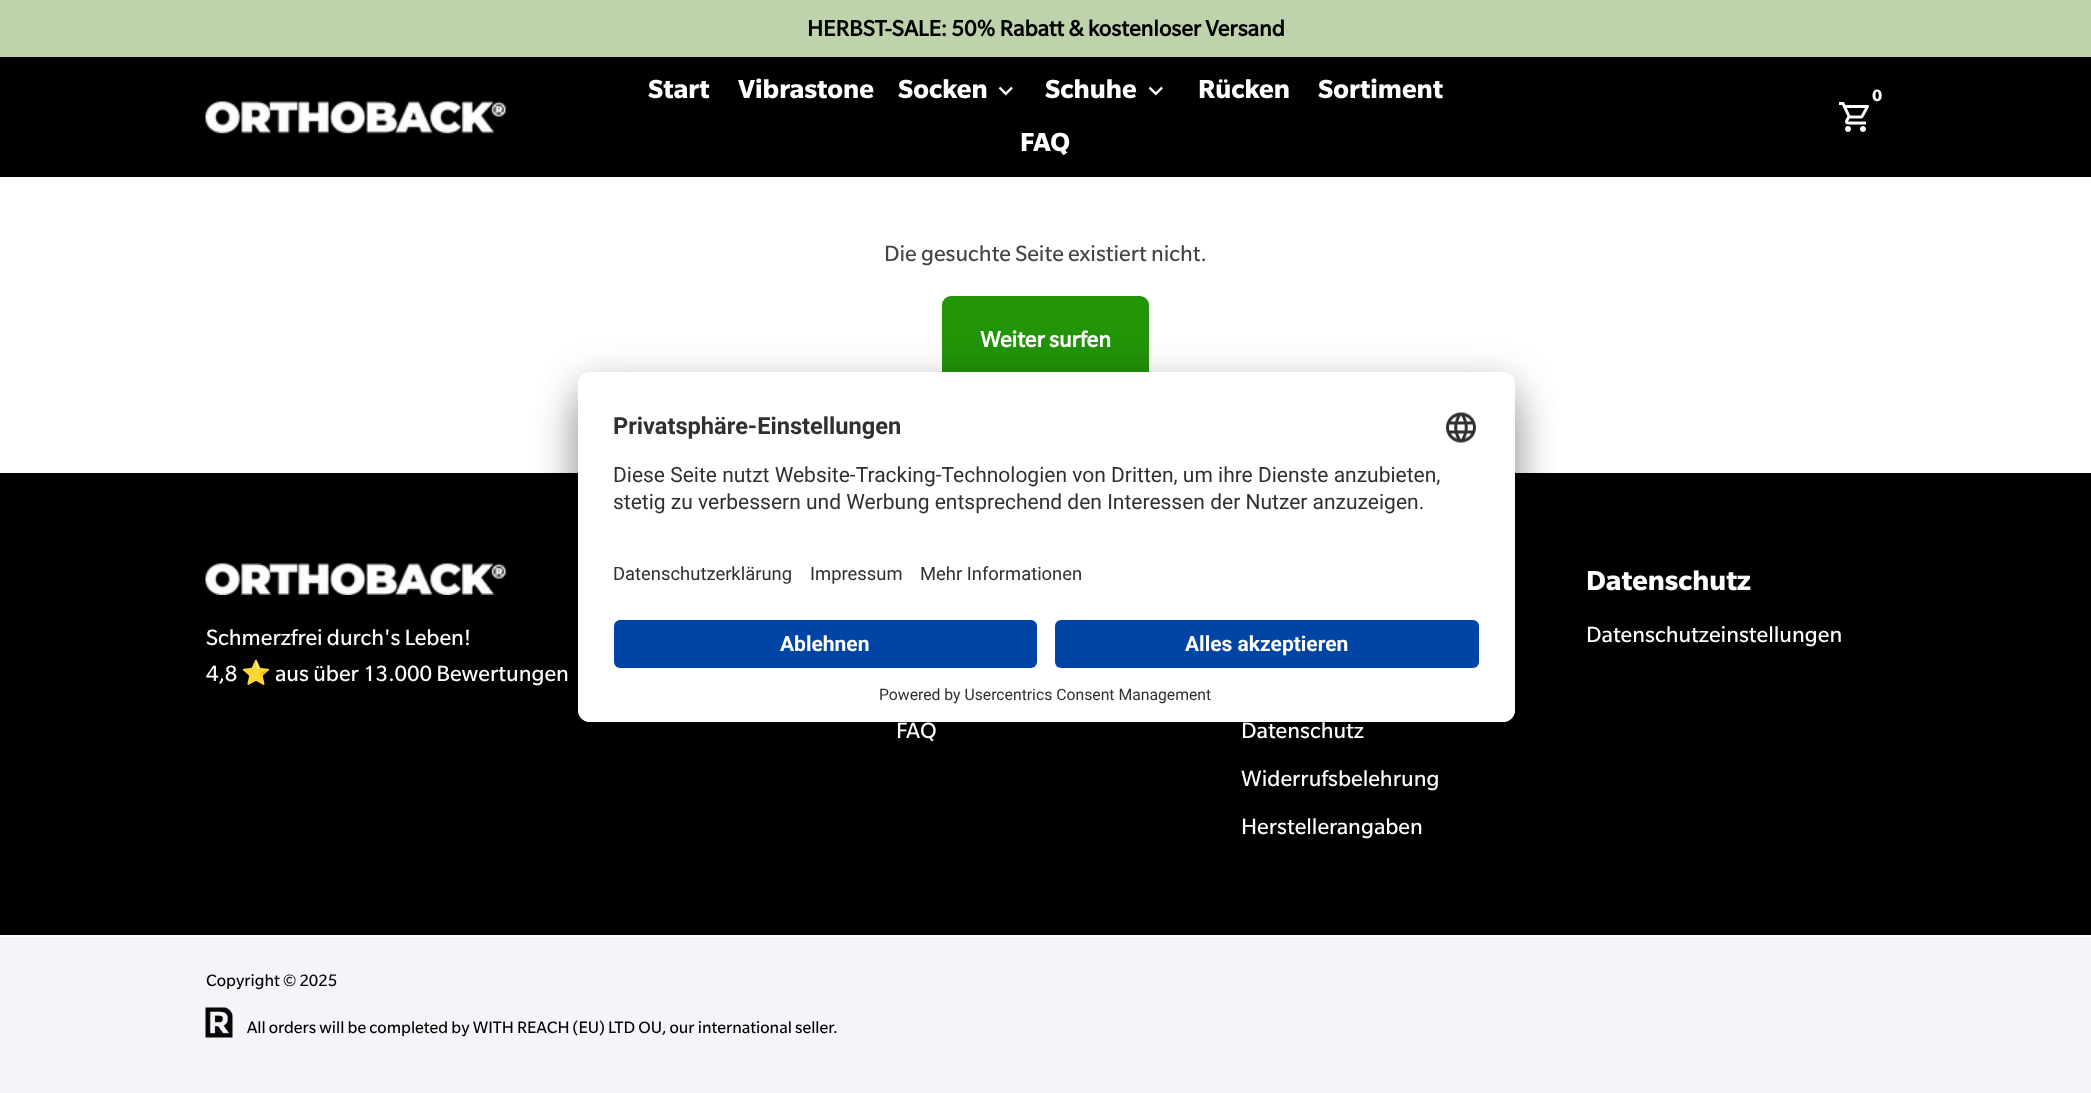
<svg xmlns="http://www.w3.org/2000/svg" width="2091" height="1093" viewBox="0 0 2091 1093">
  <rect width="100%" height="100%" fill="#fff"/>
  <path d="M0 0h2091v57H0z" fill="#bed3ab"/>
  <path d="M0 57h2091v120H0z" fill="#000"/>
  <image x="998" y="86" width="15" height="10" href="img/1.png"/>
  <image x="1148" y="86" width="15" height="10" href="img/1.png"/>
  <image x="1838" y="102" width="31" height="30" href="img/2.png"/>
  <image x="205" y="100" width="301" height="34" href="img/3.png"/>
  <rect x="943" y="297" width="205" height="85" rx="8" fill="#229408" stroke="#229408" stroke-width="2"/>
  <path d="M0 473h2091v462H0z" fill="#000"/>
  <image x="205" y="562" width="301" height="33" href="img/4.png"/>
  <path d="M0 937h2091v156H0z" fill="#f4f5f9"/>
  <image x="205" y="1007" width="28" height="31" href="img/5.png"/>
  <rect x="578" y="402" width="937" height="350" rx="12" fill="#0000004d" filter="blur(21px)"/>
  <rect x="578" y="380" width="937" height="349" rx="12" fill="#00000038" filter="blur(19.5px)"/>
  <rect x="578" y="372" width="937" height="350" rx="12" fill="#fff"/>
  <image x="1446" y="412" width="30" height="31" href="img/6.png"/>
  <path d="M578 608H1515V710C1515 716.5 1509.5 722 1503 722H590C583.5 722 578 716.5 578 710Z" fill="#fff"/>
  <rect x="614" y="620" width="423" height="48" rx="6" fill="#0045a5"/>
  <rect x="1055" y="620" width="424" height="48" rx="6" fill="#0045a5"/>
  <text x="807" y="36" font-family="'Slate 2'" font-size="24" font-weight="bold" fill="#000">HERBST-SALE: 50% Rabatt &amp; kostenloser Versand</text>
  <g font-family="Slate" font-size="28.5" font-weight="bold" fill="#fff">
    <text x="648" y="98">Start</text>
    <text x="738" y="98">Vibrastone</text>
    <text x="898" y="98">Socken</text>
    <text x="1045" y="98">Schuhe</text>
    <text x="1198" y="98">Rücken</text>
    <text x="1318" y="98">Sortiment</text>
    <text x="1020" y="151">FAQ</text>
  </g>
  <text x="1872" y="101" font-family="Slate" font-size="18" font-weight="bold" fill="#fff">0</text>
  <text x="884" y="261" font-family="Slate" font-size="24" fill="#444">Die gesuchte Seite existiert nicht.</text>
  <text x="980" y="347" font-family="'Slate 2'" font-size="24" font-weight="bold" fill="#fff">Weiter surfen</text>
  <text x="1586" y="590" font-family="Slate" font-size="30" font-weight="bold" fill="#fff">Datenschutz</text>
  <g font-family="Slate" font-size="24" fill="#fff">
    <text x="1586" y="642">Datenschutzeinstellungen</text>
    <text x="206" y="645">Schmerzfrei durch's Leben!</text>
    <text x="206" y="681">4,8</text>
  </g>
  <text x="241" y="681" font-family="Noto Color Emoji" font-size="24" fill="#fff">⭐️</text>
  <g font-family="Slate" font-size="24" fill="#fff">
    <text x="275" y="681">aus über 13.000 Bewertungen</text>
    <text x="896" y="738">FAQ</text>
    <text x="1241" y="738">Datenschutz</text>
    <text x="1241" y="786">Widerrufsbelehrung</text>
    <text x="1241" y="834">Herstellerangaben</text>
  </g>
  <g font-family="Slate" font-size="18" fill="#000">
    <text x="206" y="986">Copyright © 2025</text>
    <text x="247" y="1033">All orders will be completed by WITH REACH (EU) LTD OU, our international seller.</text>
  </g>
  <text x="613" y="434" font-family="Roboto" font-size="23.6" font-weight="bold" fill="#303030">Privatsphäre-Einstellungen</text>
  <g font-family="Roboto" font-size="21" fill="#303030">
    <text x="613" y="482">Diese Seite nutzt Website-Tracking-Technologien von Dritten, um ihre Dienste anzubieten,</text>
    <text x="613" y="509">stetig zu verbessern und Werbung entsprechend den Interessen der Nutzer anzuzeigen.</text>
  </g>
  <g font-family="Roboto" font-size="18.4" fill="#303030">
    <text x="613" y="580">Datenschutzerklärung</text>
    <text x="810" y="580">Impressum</text>
    <text x="920" y="580">Mehr Informationen</text>
  </g>
  <g font-family="Roboto" font-size="21" font-weight="bold" fill="#fff">
    <text x="780" y="651">Ablehnen</text>
    <text x="1185" y="651">Alles akzeptieren</text>
  </g>
  <text x="879" y="700" font-family="Roboto" font-size="15.75" fill="#303030">Powered by Usercentrics Consent Management</text>
</svg>
